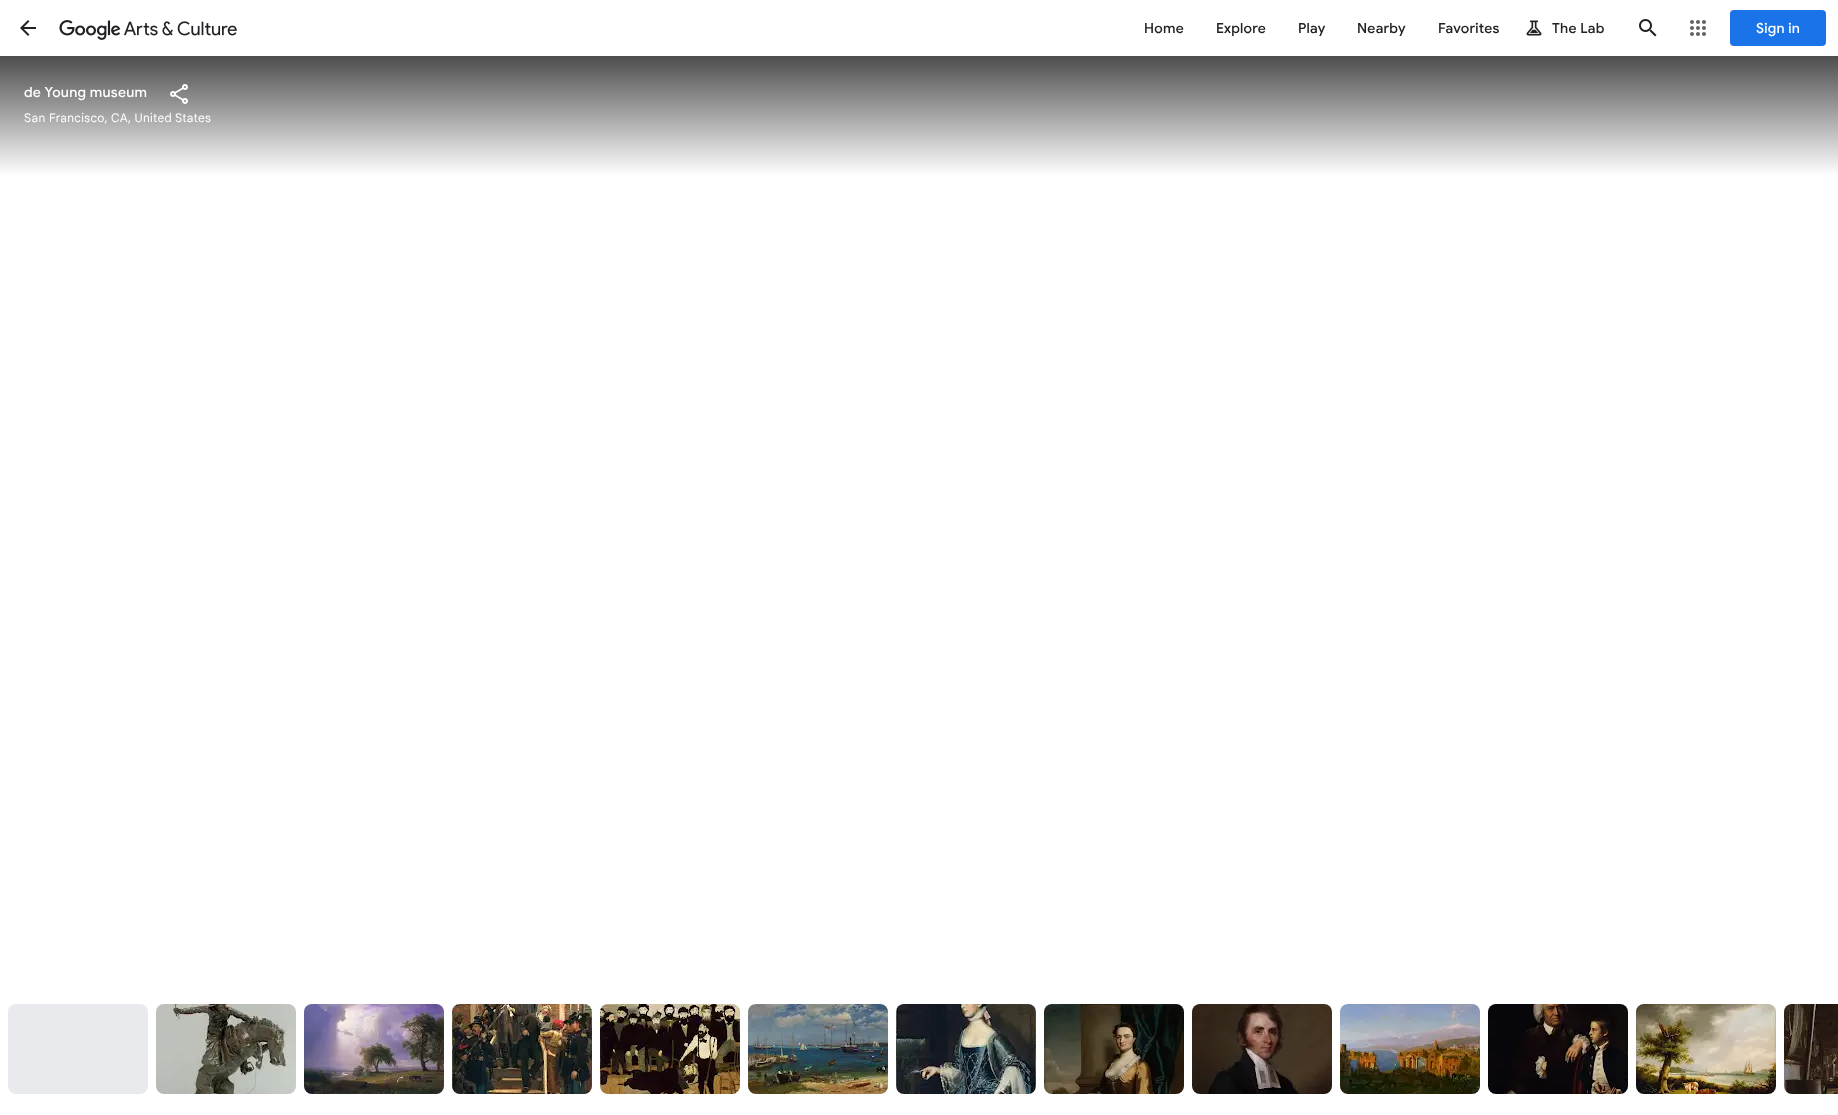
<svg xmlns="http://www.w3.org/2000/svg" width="1838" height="1115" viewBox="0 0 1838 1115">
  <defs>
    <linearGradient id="g1" gradientUnits="userSpaceOnUse" x1="919" y1="56" x2="919" y2="176"><stop offset="0" stop-color="#4d4d4d"/><stop offset="1" stop-color="#fff"/></linearGradient>
  </defs>
  <rect width="100%" height="100%" fill="#fff"/>
  <image x="20" y="20" width="16" height="16" href="img/1.png"/>
  <image x="59" y="20" width="178" height="20" href="img/2.png"/>
  <image x="1526" y="20" width="16" height="16" href="img/3.png"/>
  <image x="1639" y="19" width="18" height="18" href="img/4.png"/>
  <image x="1690" y="20" width="16" height="16" href="img/5.png"/>
  <rect x="1730" y="10" width="96" height="36" rx="4" fill="#1a73e8"/>
  <path d="M0 56h1838v118H0z" fill="url(#g1)"/>
  <image x="170" y="84" width="18" height="20" href="img/6.png"/>
  <rect x="8" y="1004" width="140" height="90" rx="8" fill="#e8eaed"/>
  <image x="156" y="1004" width="140" height="90" href="img/7.png"/>
  <image x="304" y="1004" width="140" height="90" href="img/8.png"/>
  <image x="452" y="1004" width="140" height="90" href="img/9.png"/>
  <image x="600" y="1004" width="140" height="90" href="img/10.png"/>
  <image x="748" y="1004" width="140" height="90" href="img/11.png"/>
  <image x="896" y="1004" width="140" height="90" href="img/12.png"/>
  <image x="1044" y="1004" width="140" height="90" href="img/13.png"/>
  <image x="1192" y="1004" width="140" height="90" href="img/14.png"/>
  <image x="1340" y="1004" width="140" height="90" href="img/15.png"/>
  <image x="1488" y="1004" width="140" height="90" href="img/16.png"/>
  <image x="1636" y="1004" width="140" height="90" href="img/17.png"/>
  <image x="1784" y="1004" width="54" height="90" href="img/18.png"/>
  <g font-family="Google Sans" font-size="14" font-weight="500" letter-spacing="0.25" fill="#202124">
    <text x="1144" y="33">Home</text>
    <text x="1216" y="33">Explore</text>
    <text x="1298" y="33">Play</text>
    <text x="1357" y="33">Nearby</text>
    <text x="1438" y="33">Favorites</text>
    <text x="1552" y="33">The Lab</text>
  </g>
  <g font-family="Google Sans" font-size="14" font-weight="500" letter-spacing="0.25" fill="#fff">
    <text x="1756" y="33">Sign in</text>
    <text x="24" y="97">de Young museum</text>
  </g>
  <text x="24" y="122" font-family="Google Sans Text" font-size="12" letter-spacing="0.3" fill="#fff">San Francisco, CA, United States</text>
</svg>
